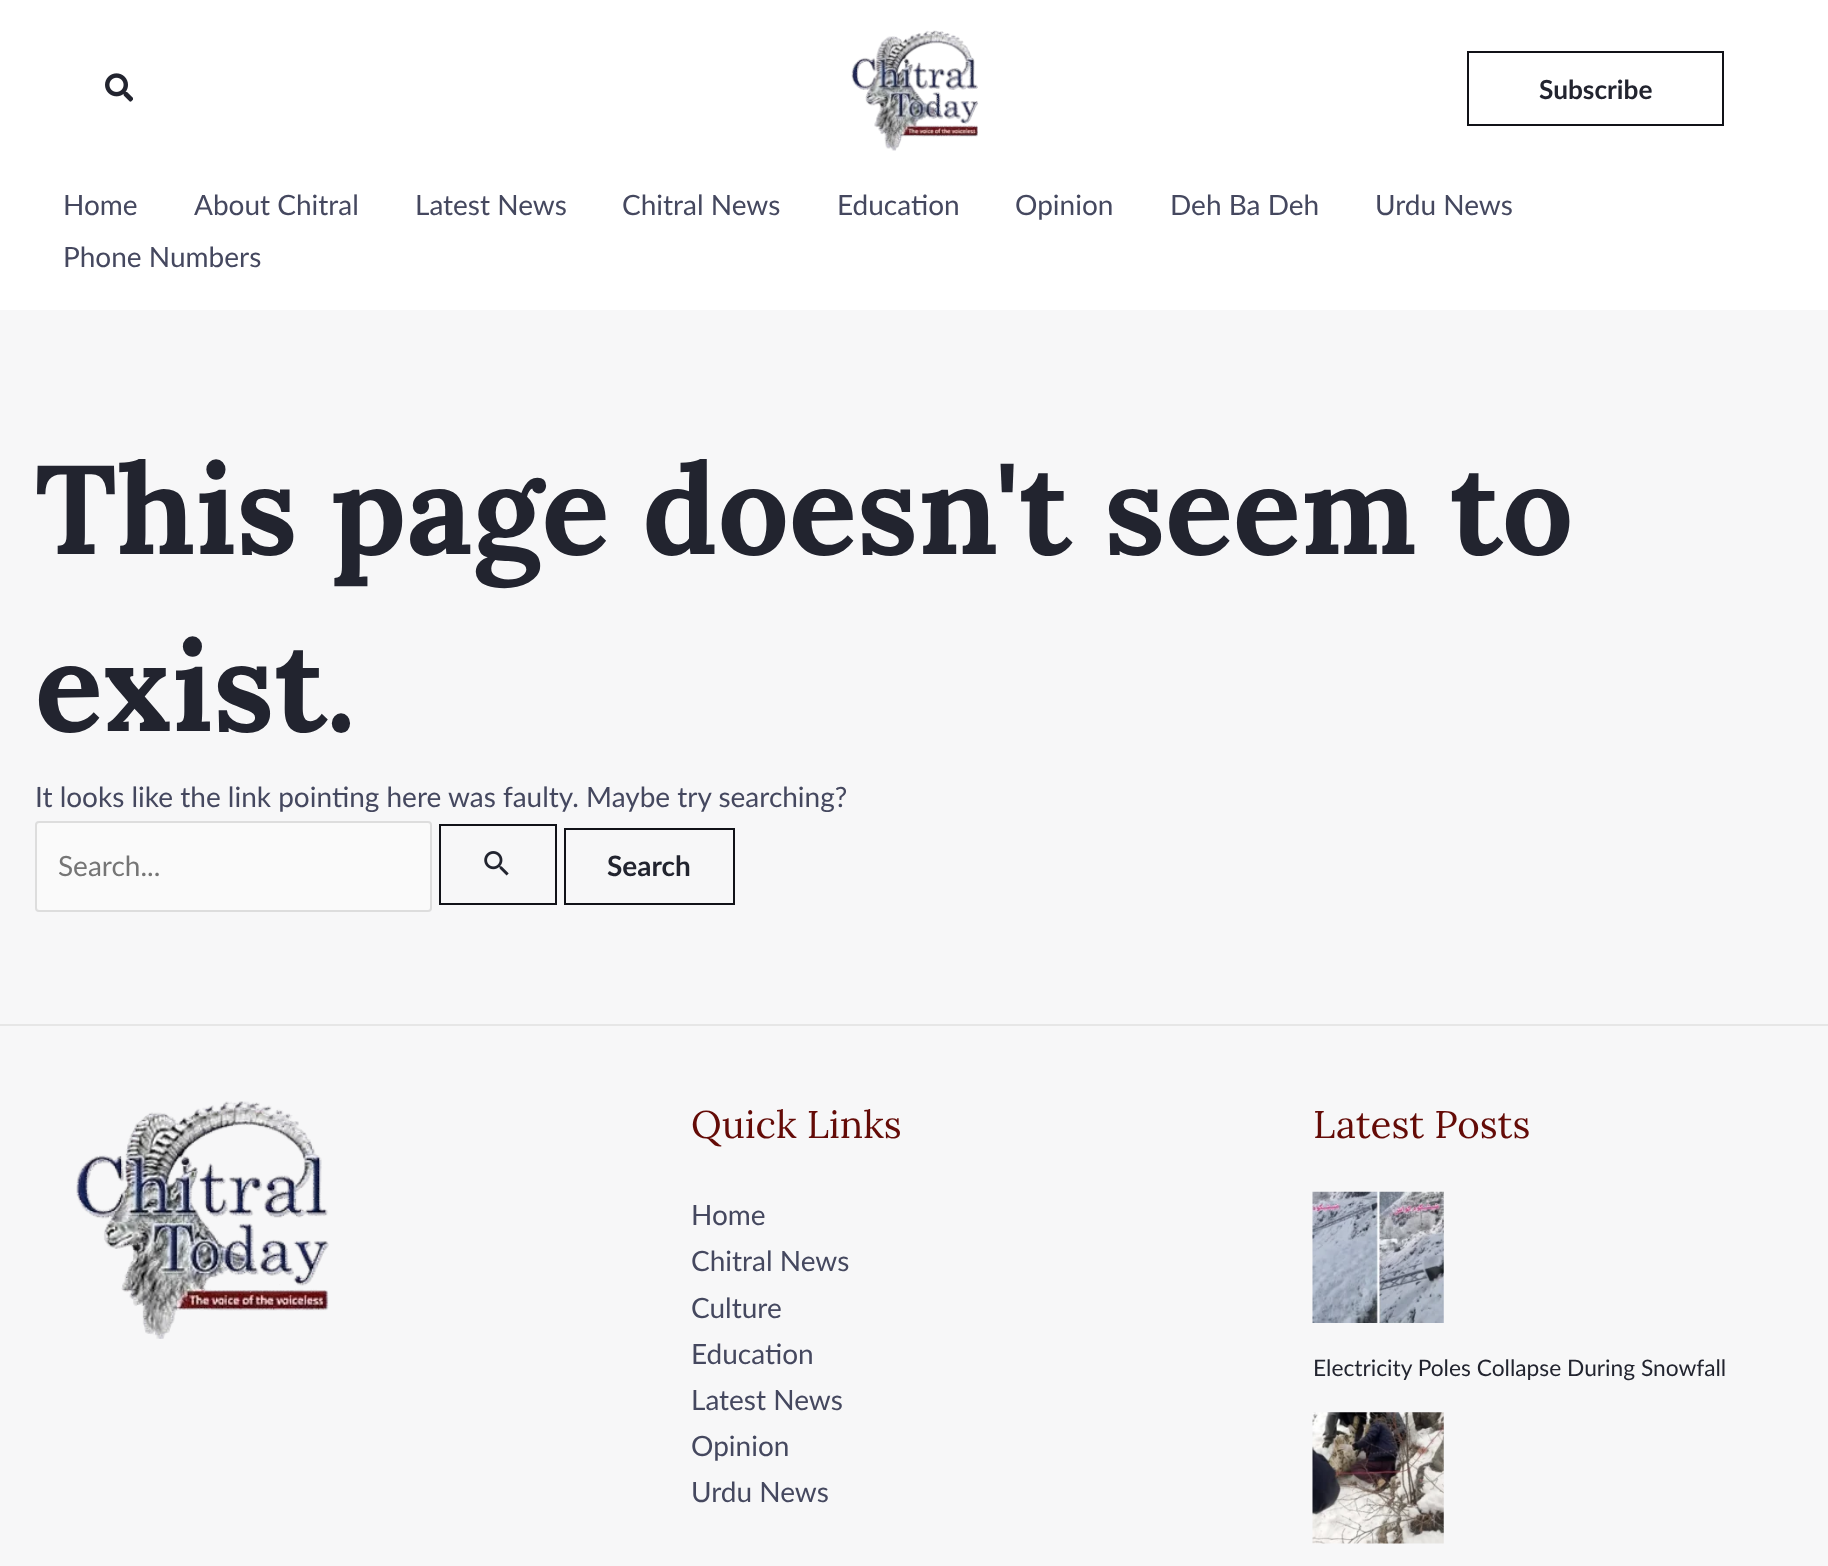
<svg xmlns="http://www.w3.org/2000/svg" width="1828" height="1566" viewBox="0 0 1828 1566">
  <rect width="100%" height="100%" fill="#f7f7f8"/>
  <path d="M0 0h1828v310H0z" fill="#fff"/>
  <image x="105" y="73" width="28" height="29" href="img/1.png"/>
  <image x="851" y="30" width="128" height="121" href="img/2.png"/>
  <path d="M1468 52h255v73H1468z" fill="none" stroke="#111218" stroke-width="2"/>
  <rect x="36" y="822" width="395" height="89" rx="3" fill="#fafafa" stroke="#ddd" stroke-width="2"/>
  <path d="M440 825h116v79H440z" fill="none" stroke="#111218" stroke-width="2"/>
  <image x="484" y="851" width="25" height="25" href="img/3.png"/>
  <path d="M565 829h169v75H565z" fill="none" stroke="#111218" stroke-width="2"/>
  <path d="M0 1024h1828v2H0z" fill="#e6e6e6"/>
  <image x="76" y="1101" width="254" height="238" href="img/4.png"/>
  <image x="1312" y="1191" width="132" height="132" href="img/5.png"/>
  <image x="1312" y="1412" width="132" height="132" href="img/6.png"/>
  <text x="1539" y="99" font-family="Lato" font-size="26.25" font-weight="bold" fill="#22242f">Subscribe</text>
  <g font-family="Lato" font-size="28" fill="#45485f">
    <text x="63" y="215">Home</text>
    <text x="194" y="215">About Chitral</text>
    <text x="415" y="215">Latest News</text>
    <text x="622" y="215">Chitral News</text>
    <text x="837" y="215">Education</text>
    <text x="1015" y="215">Opinion</text>
    <text x="1170" y="215">Deh Ba Deh</text>
    <text x="1375" y="215">Urdu News</text>
    <text x="63" y="267">Phone Numbers</text>
  </g>
  <g font-family="Lora" font-size="126" font-weight="bold" fill="#22242f">
    <text x="35" y="554">This page doesn't seem to</text>
    <text x="35" y="731">exist.</text>
  </g>
  <text x="35" y="807" font-family="Lato" font-size="28" fill="#45485f">It looks like the link pointing here was faulty. Maybe try searching?</text>
  <text x="58" y="876" font-family="Lato" font-size="28" fill="#757575">Search...</text>
  <text x="607" y="876" font-family="Lato" font-size="28" font-weight="bold" fill="#22242f">Search</text>
  <text x="691" y="1138" font-family="Lora" font-size="38.5" fill="#640b07">Quick Links</text>
  <g font-family="Lato" font-size="28" fill="#45485f">
    <text x="691" y="1225">Home</text>
    <text x="691" y="1271">Chitral News</text>
    <text x="691" y="1318">Culture</text>
    <text x="691" y="1364">Education</text>
    <text x="691" y="1410">Latest News</text>
    <text x="691" y="1456">Opinion</text>
    <text x="691" y="1502">Urdu News</text>
  </g>
  <text x="1313" y="1138" font-family="Lora" font-size="38.5" fill="#640b07">Latest Posts</text>
  <text x="1313" y="1376" font-family="Lato" font-size="22.75" fill="#22242f">Electricity Poles Collapse During Snowfall</text>
</svg>
